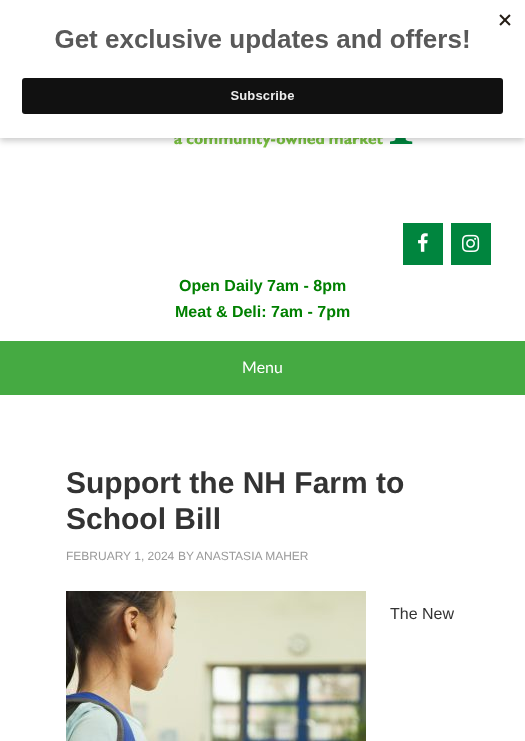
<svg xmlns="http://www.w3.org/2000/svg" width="525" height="741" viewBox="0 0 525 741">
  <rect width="100%" height="100%" fill="#fff"/>
  <image x="95" y="138" width="338" height="10" href="img/2.png"/>
  <path d="M0 3h525v138H0z" fill="#00000033" filter="blur(3px)"/>
  <path d="M0 0h525v138H0z" fill="#fff"/>
  <image x="22" y="14" width="489" height="100" href="img/1.png"/>
  <path d="M403 223h40v42H403z" fill="#00853e"/>
  <image x="418" y="233" width="10" height="19" href="img/3.png"/>
  <path d="M451 223h40v42H451z" fill="#00853e"/>
  <image x="462" y="234" width="18" height="18" href="img/4.png"/>
  <path d="M0 341h525v54H0z" fill="#45aa42"/>
  <image x="66" y="591" width="300" height="150" href="img/5.png"/>
  <g font-family="Liberation Sans" font-size="16" font-weight="bold" fill="#008000">
    <text x="179" y="291">Open Daily 7am - 8pm</text>
    <text x="175" y="317">Meat &amp; Deli: 7am - 7pm</text>
  </g>
  <text x="242" y="373" font-family="Lato" font-size="16" fill="#fff">Menu</text>
  <g font-family="Liberation Sans" font-size="30" font-weight="bold" fill="#333">
    <text x="66" y="493">Support the NH Farm to</text>
    <text x="66" y="529">School Bill</text>
  </g>
  <g font-family="Liberation Sans" font-size="12" fill="#999">
    <text x="66" y="560">FEBRUARY 1, 2024</text>
    <text x="178" y="560">BY</text>
    <text x="196" y="560">ANASTASIA MAHER</text>
  </g>
  <text x="390" y="619" font-family="Liberation Sans" font-size="16" fill="#333">The New</text>
</svg>
